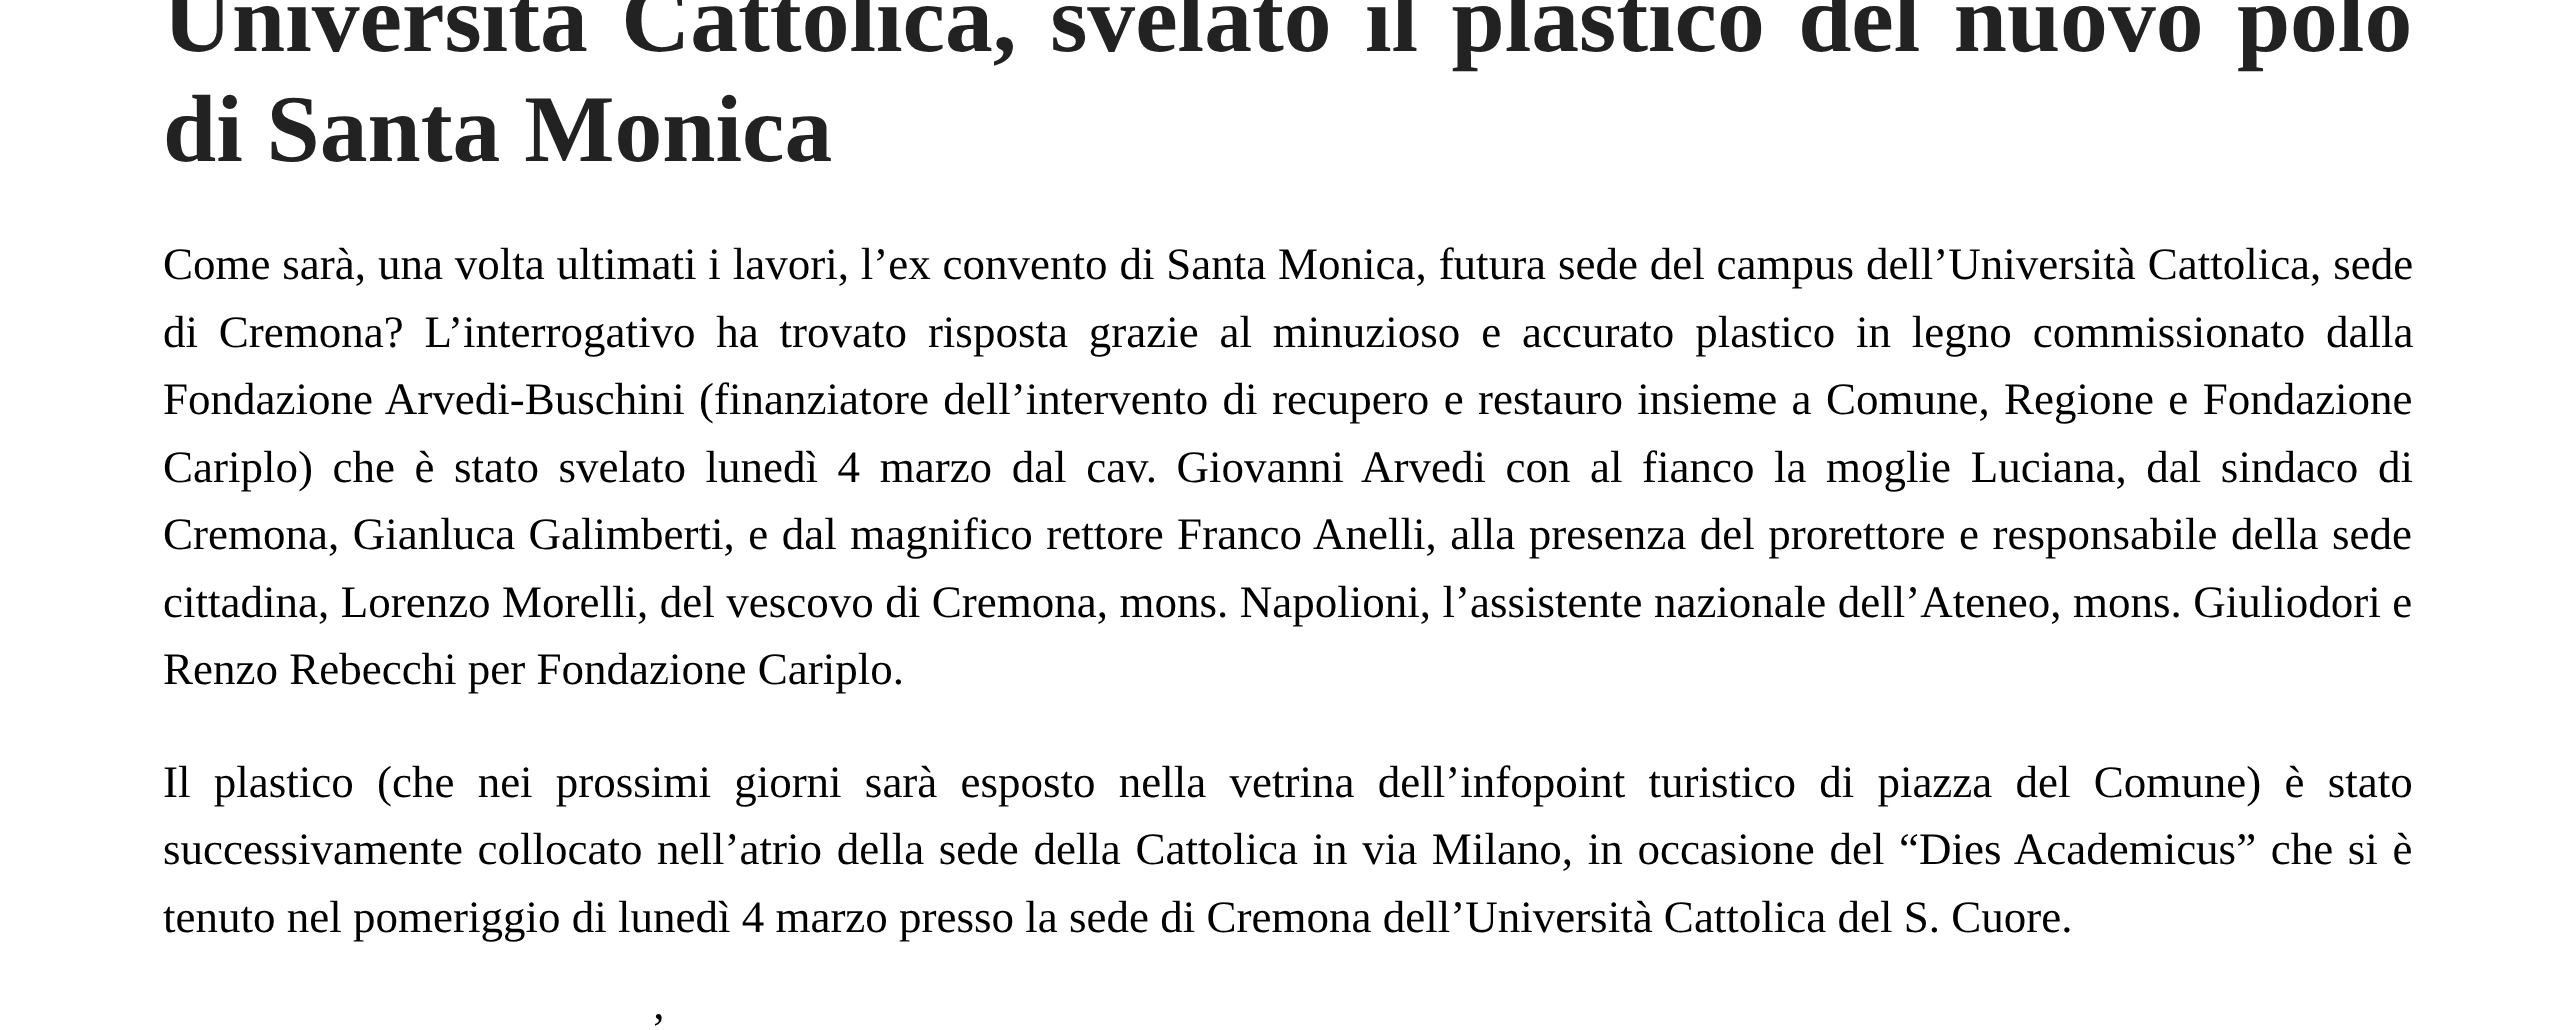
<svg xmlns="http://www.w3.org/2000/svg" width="2575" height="1030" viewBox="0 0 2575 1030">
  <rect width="100%" height="100%" fill="#fff"/>
  <g font-family="Liberation Serif" font-size="95.6" font-weight="bold" fill="#222">
    <text x="163" y="51" word-spacing="9.5">Università Cattolica, svelato il plastico del nuovo polo</text>
    <text x="163" y="161">di Santa Monica</text>
  </g>
  <g font-family="Liberation Serif" font-size="45" fill="#000">
    <text x="163" y="279" word-spacing="0.6">Come sarà, una volta ultimati i lavori, l’ex convento di Santa Monica, futura sede del campus dell’Università Cattolica, sede</text>
    <text x="163" y="347" word-spacing="9.6">di Cremona? L’interrogativo ha trovato risposta grazie al minuzioso e accurato plastico in legno commissionato dalla</text>
    <text x="163" y="414" word-spacing="3.1">Fondazione Arvedi-Buschini (finanziatore dell’intervento di recupero e restauro insieme a Comune, Regione e Fondazione</text>
    <text x="163" y="482" word-spacing="8.3">Cariplo) che è stato svelato lunedì 4 marzo dal cav. Giovanni Arvedi con al fianco la moglie Luciana, dal sindaco di</text>
    <text x="163" y="549" word-spacing="2.25">Cremona, Gianluca Galimberti, e dal magnifico rettore Franco Anelli, alla presenza del prorettore e responsabile della sede</text>
    <text x="163" y="617" word-spacing="0.25">cittadina, Lorenzo Morelli, del vescovo di Cremona, mons. Napolioni, l’assistente nazionale dell’Ateneo, mons. Giuliodori e</text>
    <text x="163" y="684">Renzo Rebecchi per Fondazione Cariplo.</text>
    <text x="163" y="797" word-spacing="12">Il plastico (che nei prossimi giorni sarà esposto nella vetrina dell’infopoint turistico di piazza del Comune) è stato</text>
    <text x="163" y="864" word-spacing="3.4">successivamente collocato nell’atrio della sede della Cattolica in via Milano, in occasione del “Dies Academicus” che si è</text>
    <text x="163" y="932">tenuto nel pomeriggio di lunedì 4 marzo presso la sede di Cremona dell’Università Cattolica del S. Cuore.</text>
    <text x="651" y="1044" word-spacing="7">’</text>
  </g>
</svg>
